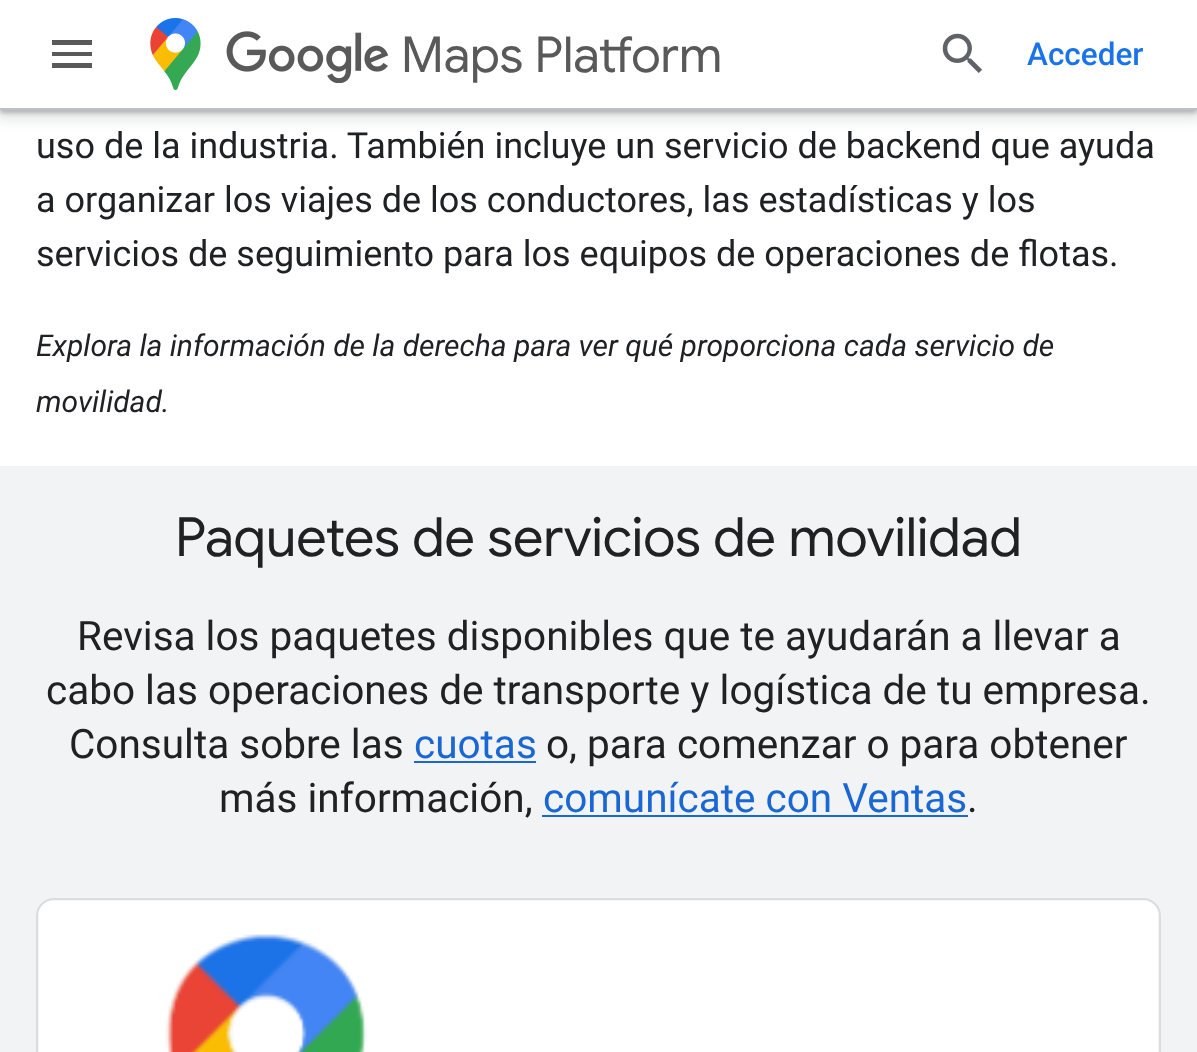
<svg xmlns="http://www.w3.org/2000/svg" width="1197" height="1052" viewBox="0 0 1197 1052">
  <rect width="100%" height="100%" fill="#fff"/>
  <path d="M-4 -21h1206v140H-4z" fill="#3c404326" filter="blur(7px)"/>
  <path d="M0 -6h1197v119H0z" fill="#3c40434d" filter="blur(2px)"/>
  <path d="M0 0h1197v108H0z" fill="#fff"/>
  <path d="M0 108h1197v2H0z" fill="#bdc1c6"/>
  <path d="M52 40H92V45H52ZM52 56V52H92V56ZM52 68V63H92V68Z" fill="#595959"/>
  <image x="150" y="18" width="51" height="72" href="img/1.png"/>
  <image x="226" y="31" width="163" height="52" href="img/2.png"/>
  <image x="942" y="33" width="40" height="40" href="img/3.png"/>
  <path d="M0 466h1197v586H0z" fill="#f1f3f4"/>
  <path d="M414 761h122v2H414z" fill="#1967d2"/>
  <path d="M542 815h426v2H542z" fill="#1967d2"/>
  <rect x="37" y="899" width="1123" height="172" rx="17" fill="none" stroke="#dadce0" stroke-width="2"/>
  <path d="M54 900H1143C1152 900 1159 907 1159 916V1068H38V916C38 907 45 900 54 900Z" fill="#e8eaed"/>
  <image x="38" y="900" width="1121" height="152" href="img/4.png"/>
  <text x="401" y="72" font-family="Google Sans" font-size="49.5" fill="#595959">Maps Platform</text>
  <text x="1027" y="65" font-family="Roboto" font-size="31.5" font-weight="500" fill="#1a73e8">Acceder</text>
  <g font-family="Roboto" font-size="36" fill="#202124">
    <text x="36" y="158">uso de la industria. También incluye un servicio de backend que ayuda</text>
    <text x="36" y="212">a organizar los viajes de los conductores, las estadísticas y los</text>
    <text x="36" y="266">servicios de seguimiento para los equipos de operaciones de flotas.</text>
  </g>
  <g font-family="Roboto" font-size="30" font-style="italic" fill="#202124">
    <text x="36" y="356">Explora la información de la derecha para ver qué proporciona cada servicio de</text>
    <text x="36" y="412">movilidad.</text>
  </g>
  <text x="175" y="556" font-family="Google Sans" font-size="54" fill="#202124">Paquetes de servicios de movilidad</text>
  <g font-family="Roboto" font-size="40.5" fill="#202124">
    <text x="77" y="650">Revisa los paquetes disponibles que te ayudarán a llevar a</text>
    <text x="46" y="704">cabo las operaciones de transporte y logística de tu empresa.</text>
    <text x="69" y="758">Consulta sobre las</text>
  </g>
  <text x="414" y="758" font-family="Roboto" font-size="40.5" fill="#1967d2">cuotas</text>
  <g font-family="Roboto" font-size="40.5" fill="#202124">
    <text x="546" y="758">o, para comenzar o para obtener</text>
    <text x="219" y="812">más información,</text>
  </g>
  <text x="543" y="812" font-family="Roboto" font-size="40.5" fill="#1967d2">comunícate con Ventas</text>
  <text x="967" y="812" font-family="Roboto" font-size="40.5" fill="#202124">.</text>
</svg>
